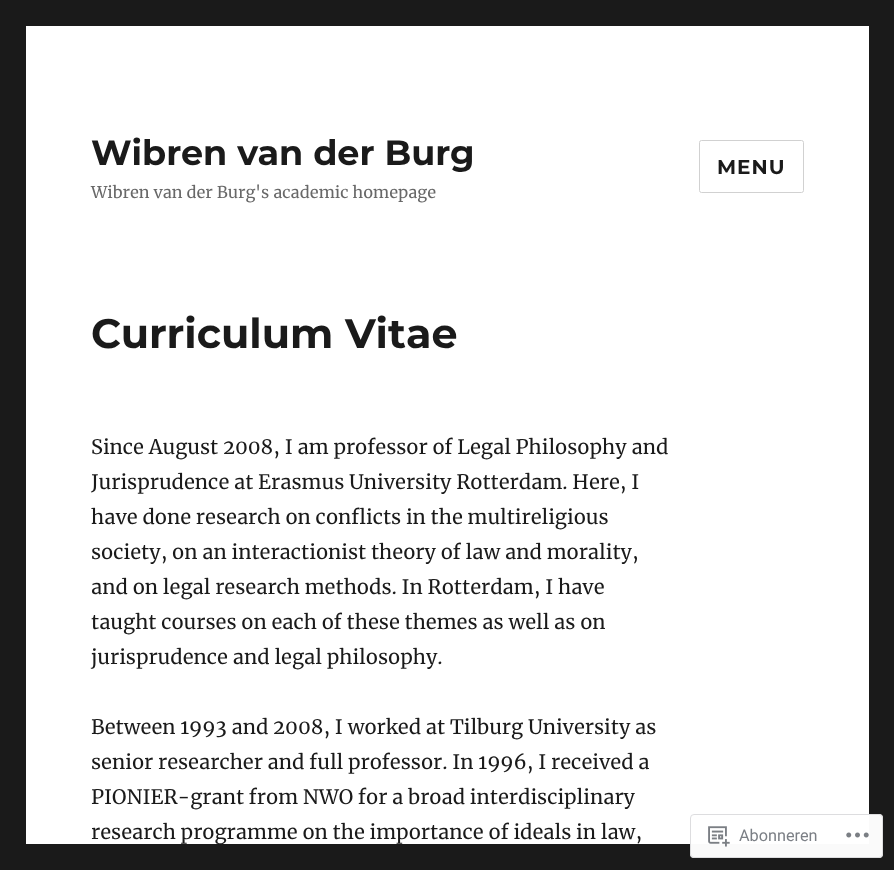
<svg xmlns="http://www.w3.org/2000/svg" width="894" height="870" viewBox="0 0 894 870">
  <rect width="100%" height="100%" fill="#1a1a1a"/>
  <path d="M26 26h843v818H26z" fill="#fff"/>
  <rect x="699.5" y="140.5" width="104" height="52" rx="2" fill="none" stroke="#d1d1d1"/>
  <rect x="690" y="814" width="193" height="44" rx="4" fill="#fffffffa"/>
  <rect x="690.5" y="814.5" width="192" height="43" rx="3.5" fill="none" stroke="#dcdcdefa"/>
  <image x="708" y="826" width="22" height="21" href="img/1.png"/>
  <image x="846" y="832" width="23" height="6" href="img/2.png"/>
  <text x="91" y="165" font-family="Montserrat" font-size="35" font-weight="100" fill="#1a1a1a">Wibren van der Burg</text>
  <text x="91" y="198" font-family="Merriweather" font-size="16.25" fill="#686868">Wibren van der Burg's academic homepage</text>
  <text x="717" y="174" font-family="Montserrat" font-size="20" font-weight="100" letter-spacing="1" fill="#1a1a1a">MENU</text>
  <text x="91" y="348" font-family="Montserrat" font-size="41.25" font-weight="100" fill="#1a1a1a">Curriculum Vitae</text>
  <g font-family="Merriweather" font-size="20" fill="#1a1a1a">
    <text x="91" y="454">Since August 2008, I am professor of Legal Philosophy and</text>
    <text x="91" y="489">Jurisprudence at Erasmus University Rotterdam. Here, I</text>
    <text x="91" y="524">have done research on conflicts in the multireligious</text>
    <text x="91" y="559">society, on an interactionist theory of law and morality,</text>
    <text x="91" y="594">and on legal research methods. In Rotterdam, I have</text>
    <text x="91" y="629">taught courses on each of these themes as well as on</text>
    <text x="91" y="664">jurisprudence and legal philosophy.</text>
    <text x="91" y="734">Between 1993 and 2008, I worked at Tilburg University as</text>
    <text x="91" y="769">senior researcher and full professor. In 1996, I received a</text>
    <text x="91" y="804">PIONIER-grant from NWO for a broad interdisciplinary</text>
    <text x="91" y="839">research programme on the importance of ideals in law,</text>
  </g>
  <text x="739" y="841" font-family="Roboto" font-size="16.25" fill="#7b7f85">Abonneren</text>
</svg>
